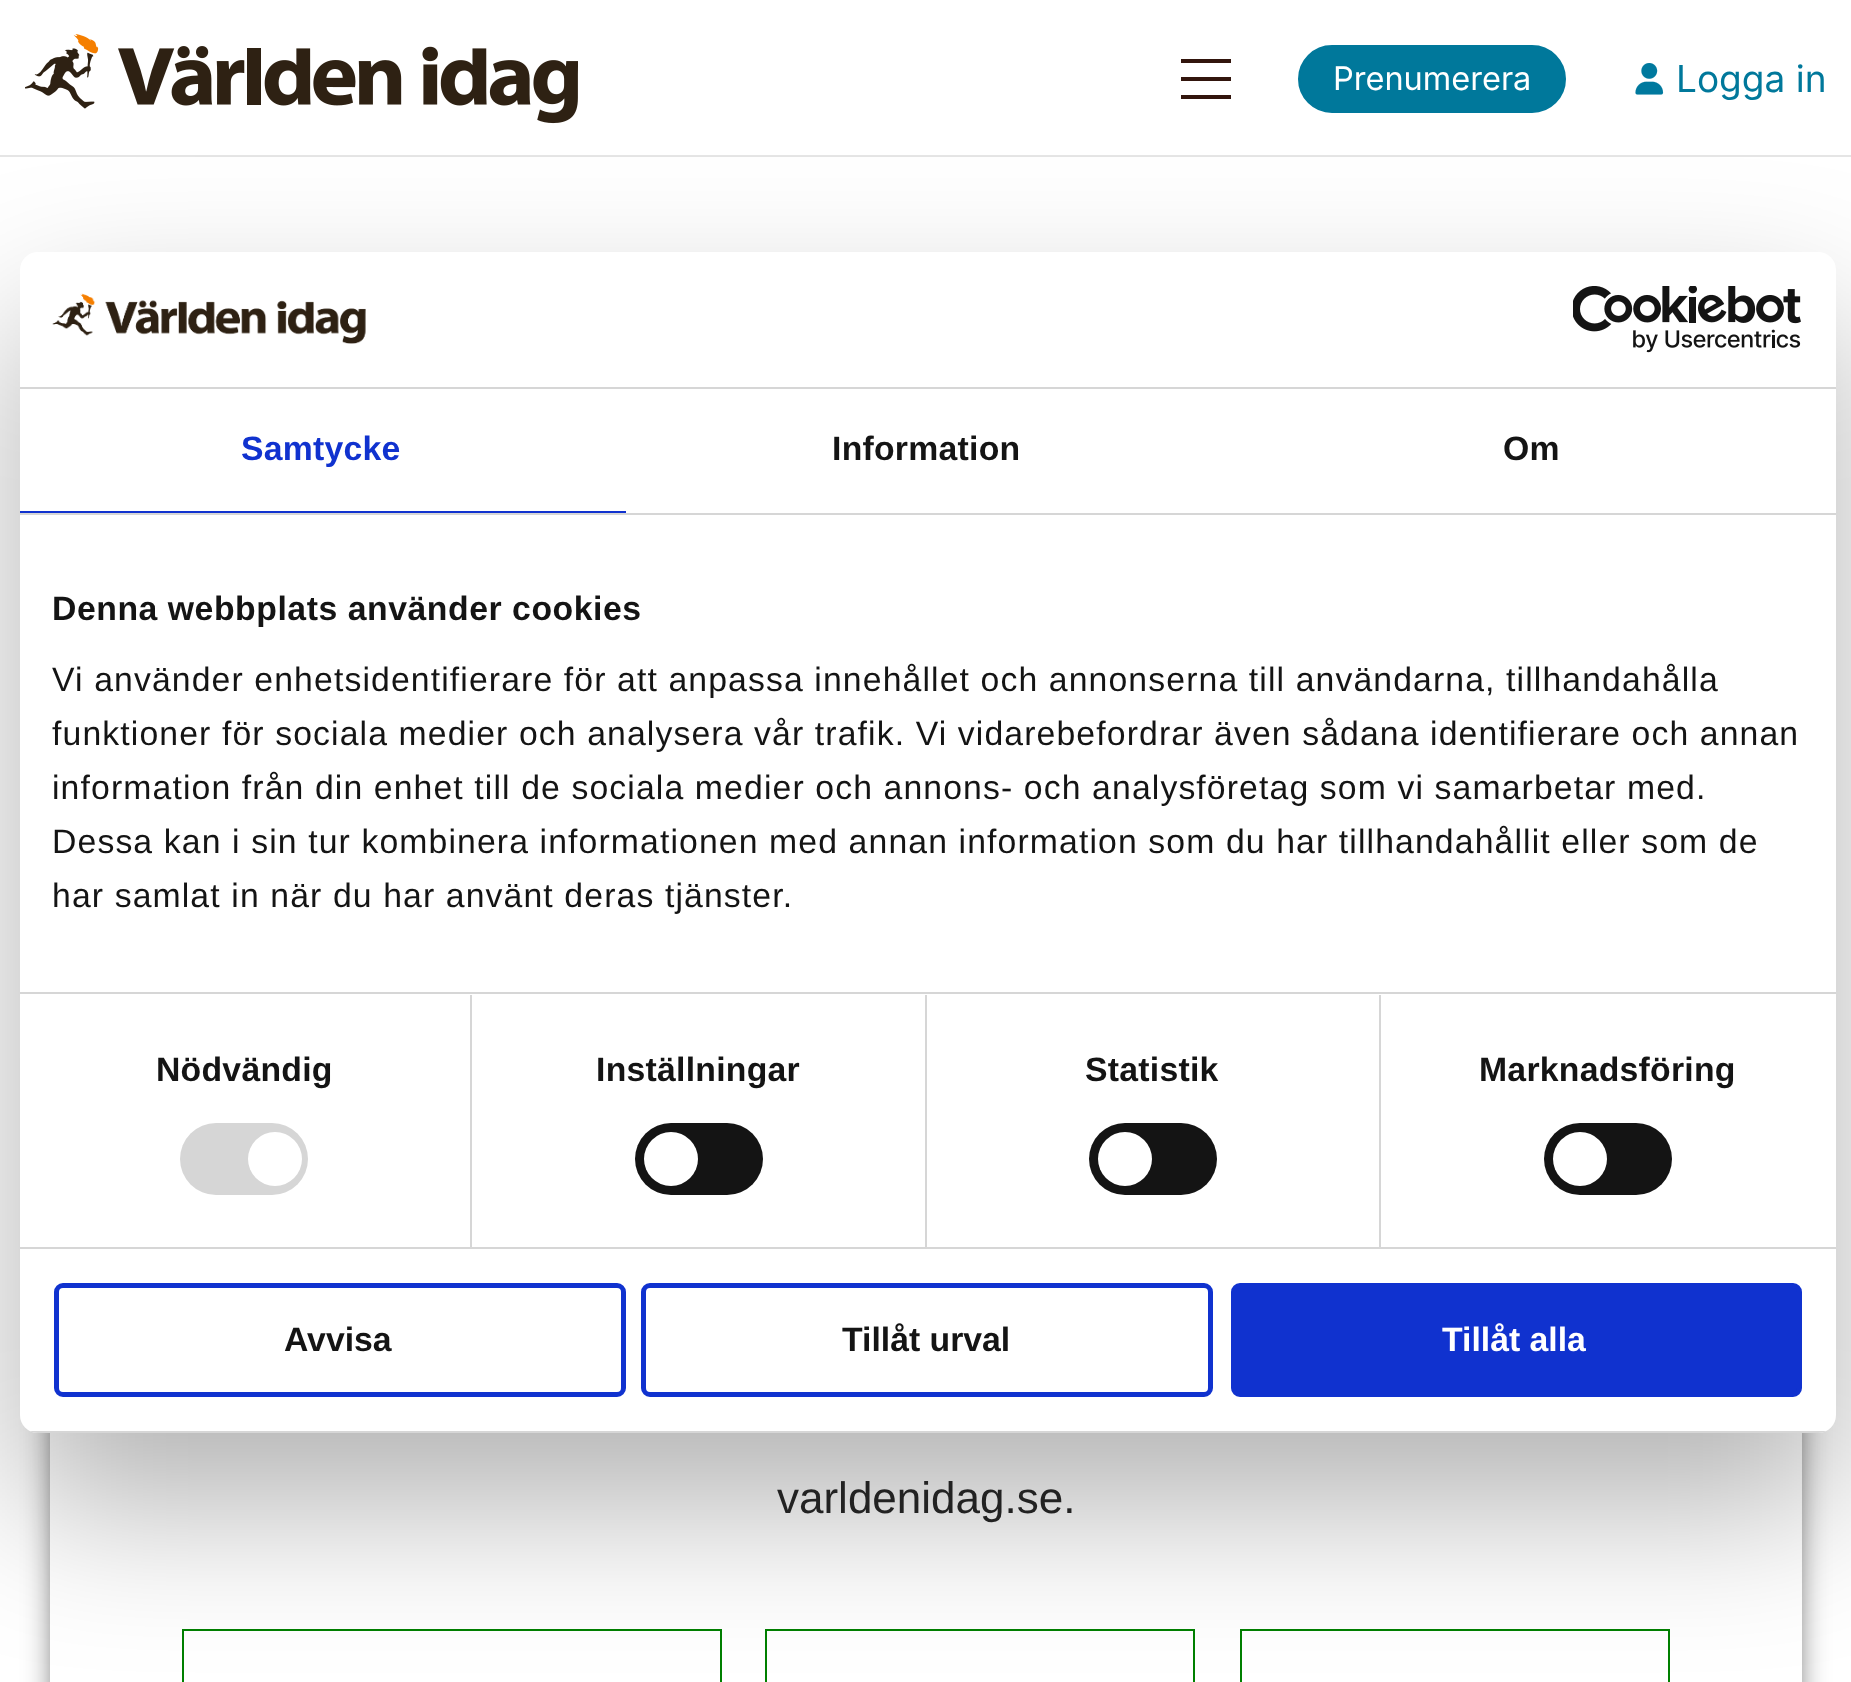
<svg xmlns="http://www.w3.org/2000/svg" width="1851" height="1682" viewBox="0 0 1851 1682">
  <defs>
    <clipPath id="clip1"><path d="M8 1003H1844V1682H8ZM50 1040H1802V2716H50Z" clip-rule="evenodd"/></clipPath>
    <clipPath id="clip2"><rect x="20" y="252" width="1816" height="1181" rx="18"/></clipPath>
  </defs>
  <rect width="100%" height="100%" fill="#fff"/>
  <path d="M0 155h1851v2H0z" fill="#e5e5e5"/>
  <image x="25" y="34" width="553" height="90" href="img/1.png"/>
  <path d="M1181 59h50v4H1181z" fill="#32150d"/>
  <path d="M1181 77h50v4H1181z" fill="#32150d"/>
  <path d="M1181 95h50v4H1181z" fill="#32150d"/>
  <rect x="1299" y="46" width="266" height="66" rx="33" fill="#00789b" stroke="#00789b" stroke-width="2"/>
  <image x="1635" y="63" width="29" height="32" href="img/2.png"/>
  <g clip-path="url(#clip1)">
    <path d="M63 1058h1726v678H63z" fill="#000" filter="blur(18px)"/>
  </g>
  <path d="M183 1630h538v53H183z" fill="none" stroke="#008000" stroke-width="2"/>
  <path d="M766 1630h428v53H766z" fill="none" stroke="#008000" stroke-width="2"/>
  <path d="M1241 1630h428v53H1241z" fill="none" stroke="#008000" stroke-width="2"/>
  <rect x="20" y="324" width="1816" height="1181" rx="18" fill="#0000004d" filter="blur(76.5px)"/>
  <rect x="20" y="252" width="1816" height="1181" rx="18" fill="#fff"/>
  <path d="M20 387h1816v2H20z" fill="#d6d6d6"/>
  <image x="52" y="293" width="314" height="51" href="img/3.png"/>
  <image x="1573" y="286" width="228" height="67" href="img/4.png"/>
  <path d="M20 513h1816v2H20z" fill="#d6d6d6"/>
  <path d="M20 511h606v2H20z" fill="#1032cf"/>
  <path d="M20 992h1816v2H20z" fill="#d6d6d6"/>
  <path d="M20 1247h1816v2H20z" fill="#d6d6d6"/>
  <path d="M470 995h2v252H470z" fill="#d6d6d6"/>
  <rect x="180" y="1123" width="128" height="72" rx="36" fill="#d6d6d6"/>
  <circle cx="275" cy="1159" r="27" fill="#fff"/>
  <path d="M925 995h2v252H925z" fill="#d6d6d6"/>
  <rect x="635" y="1123" width="128" height="72" rx="36" fill="#141414"/>
  <circle cx="671" cy="1159" r="27" fill="#fff"/>
  <path d="M1379 995h2v252H1379z" fill="#d6d6d6"/>
  <rect x="1089" y="1123" width="128" height="72" rx="36" fill="#141414"/>
  <circle cx="1125" cy="1159" r="27" fill="#fff"/>
  <rect x="1544" y="1123" width="128" height="72" rx="36" fill="#141414"/>
  <circle cx="1580" cy="1159" r="27" fill="#fff"/>
  <g clip-path="url(#clip2)">
    <path d="M30 1431h1796v2H30z" fill="#d6d6d6"/>
  </g>
  <rect x="56.5" y="1285.5" width="567" height="109" rx="6.5" fill="none" stroke="#1032cf" stroke-width="5"/>
  <rect x="643.5" y="1285.5" width="567" height="109" rx="6.5" fill="none" stroke="#1032cf" stroke-width="5"/>
  <rect x="1233.5" y="1285.5" width="566" height="109" rx="6.5" fill="#1032cf" stroke="#1032cf" stroke-width="5"/>
  <text x="1333" y="90" font-family="Inter" font-size="32.5" fill="#fff">Prenumerera</text>
  <text x="1676" y="92" font-family="Inter" font-size="37" fill="#00789b">Logga in</text>
  <text x="241" y="460" font-family="Liberation Sans" font-size="33.75" font-weight="bold" letter-spacing="0.25" fill="#1032cf">Samtycke</text>
  <g font-family="Liberation Sans" font-size="33.75" font-weight="bold" letter-spacing="0.25" fill="#141414">
    <text x="832" y="460">Information</text>
    <text x="1503" y="460">Om</text>
  </g>
  <text x="52" y="620" font-family="Liberation Sans" font-size="33.75" font-weight="bold" letter-spacing="0.55" fill="#141414">Denna webbplats använder cookies</text>
  <g font-family="Liberation Sans" font-size="33.75" letter-spacing="1.12" fill="#141414">
    <text x="52" y="691">Vi använder enhetsidentifierare för att anpassa innehållet och annonserna till användarna, tillhandahålla</text>
    <text x="52" y="745">funktioner för sociala medier och analysera vår trafik. Vi vidarebefordrar även sådana identifierare och annan</text>
    <text x="52" y="799">information från din enhet till de sociala medier och annons- och analysföretag som vi samarbetar med.</text>
    <text x="52" y="853">Dessa kan i sin tur kombinera informationen med annan information som du har tillhandahållit eller som de</text>
    <text x="52" y="907">har samlat in när du har använt deras tjänster.</text>
  </g>
  <g font-family="Liberation Sans" font-size="33.75" font-weight="bold" letter-spacing="0.25" fill="#141414">
    <text x="156" y="1081">Nödvändig</text>
    <text x="596" y="1081">Inställningar</text>
    <text x="1085" y="1081">Statistik</text>
    <text x="1479" y="1081">Marknadsföring</text>
  </g>
  <g font-family="Liberation Sans" font-size="33.75" font-weight="bold" fill="#141414">
    <text x="284" y="1351">Avvisa</text>
    <text x="842" y="1351">Tillåt urval</text>
  </g>
  <text x="1442" y="1351" font-family="Liberation Sans" font-size="33.75" font-weight="bold" fill="#fff">Tillåt alla</text>
  <text x="777" y="1513" font-family="Liberation Sans" font-size="44" fill="#222">varldenidag.se.</text>
</svg>
